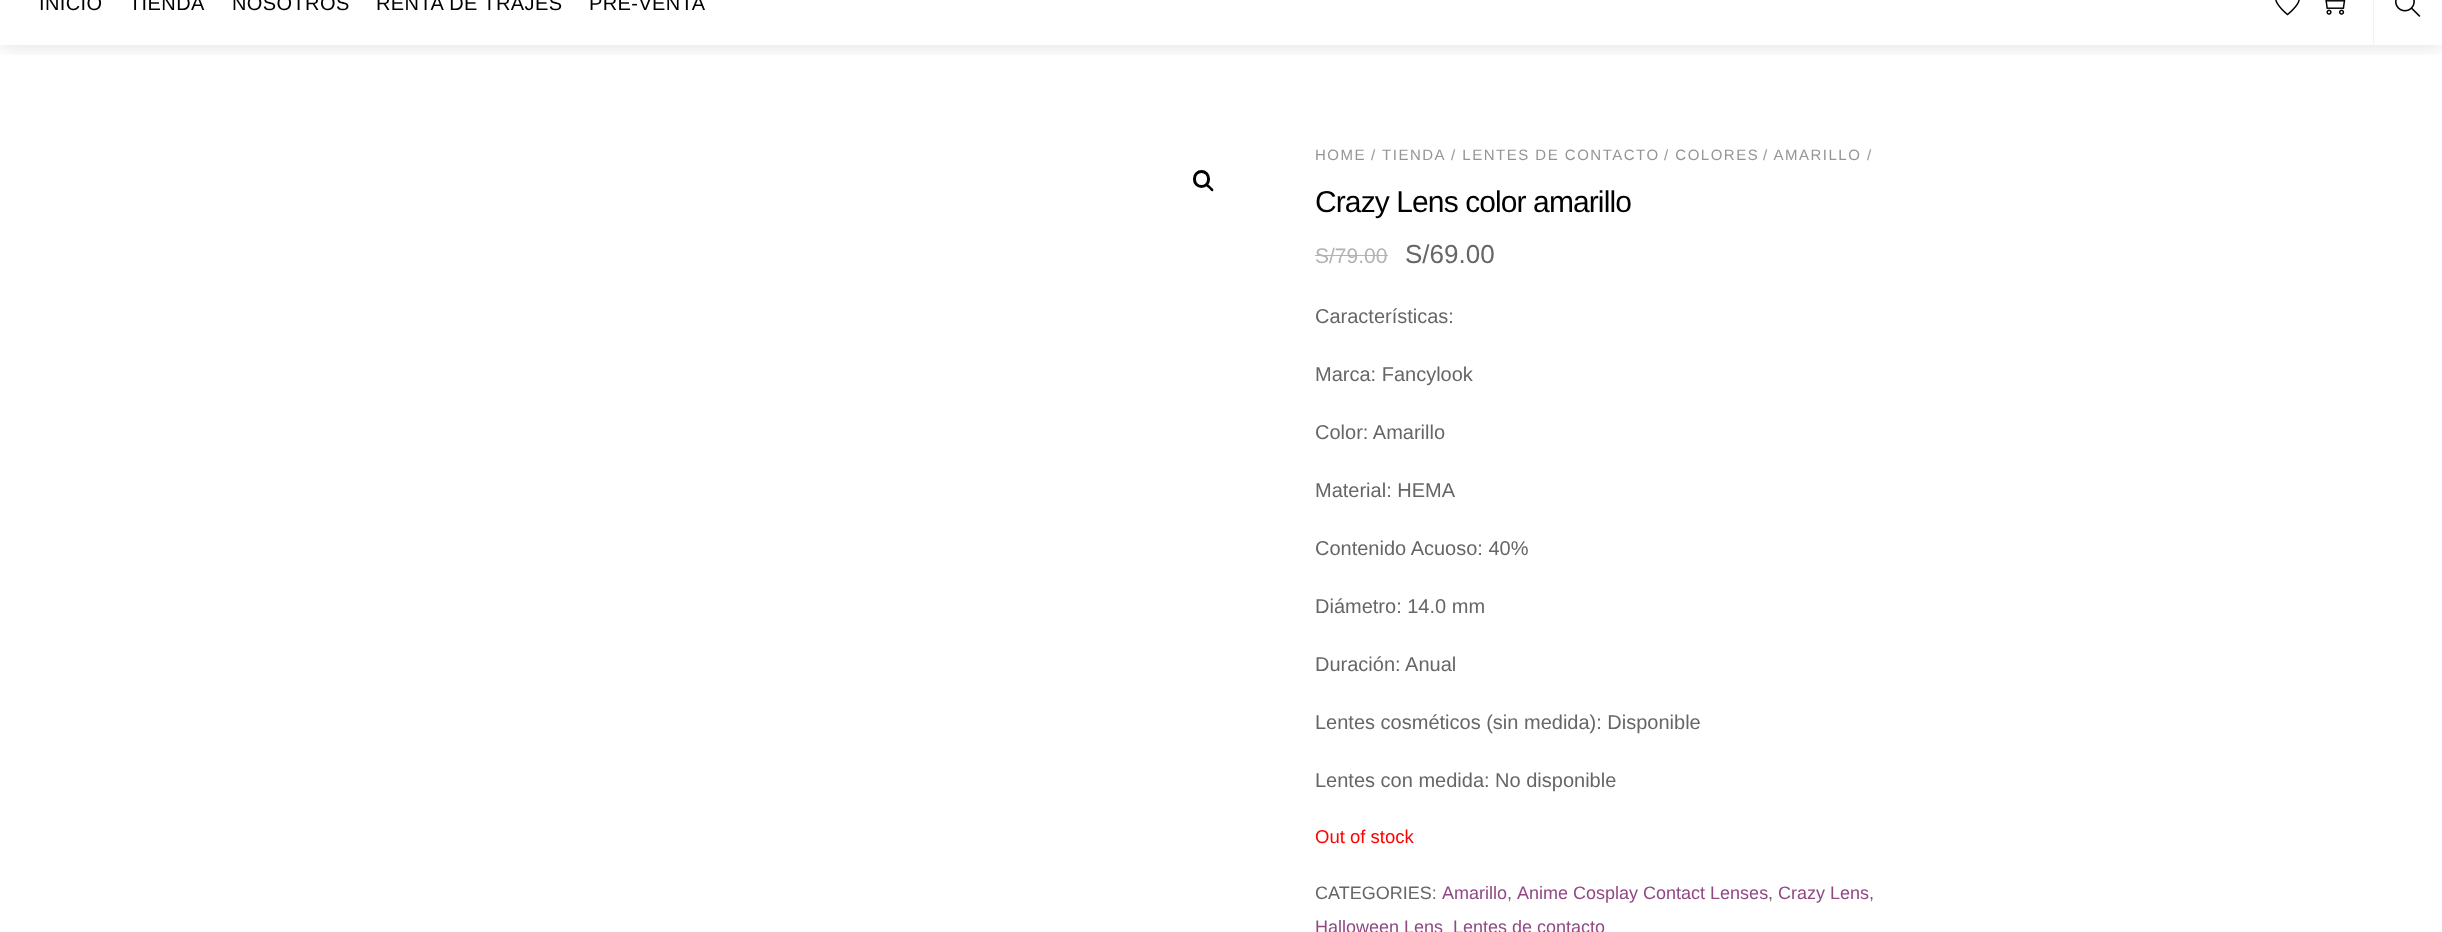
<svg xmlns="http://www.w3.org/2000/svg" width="2442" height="932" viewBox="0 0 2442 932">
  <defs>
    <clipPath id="clip1"><path d="M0 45h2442v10H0z"/></clipPath>
  </defs>
  <rect width="100%" height="100%" fill="#fff"/>
  <g clip-path="url(#clip1)">
    <path d="M0 1h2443v45H0z" fill="#0000001f" filter="blur(9.5px)"/>
  </g>
  <image x="2275" y="0" width="25" height="16" href="img/1.png"/>
  <image x="2325" y="0" width="21" height="15" href="img/2.png"/>
  <path d="M2373 0h1v45H2373z" fill="#f2f2f2"/>
  <image x="2395" y="0" width="26" height="17" href="img/3.png"/>
  <rect x="1194.5" y="171.5" width="14" height="15" rx="7" fill="none" stroke="#000" stroke-width="3"/>
  <path d="M1206 184C1207.5 182.5 1210 186 1210.5 186.5C1211.5 187.5 1214.5 189.5 1213 191C1212 192.5 1209.5 189 1209 188.5C1208 187.5 1204.5 185.5 1206 184Z" fill="#000"/>
  <path d="M1315 255h73v1H1315z" fill="#b3b3b3"/>
  <g font-family="Liberation Sans" font-size="20" letter-spacing="0.4" fill="#000">
    <text x="39" y="10">INICIO</text>
    <text x="129" y="10">TIENDA</text>
    <text x="232" y="10">NOSOTROS</text>
    <text x="376" y="10">RENTA DE TRAJES</text>
    <text x="589" y="10">PRE-VENTA</text>
  </g>
  <g font-family="Liberation Sans" font-size="15" letter-spacing="1.5" fill="#959595">
    <text x="1315" y="160">HOME</text>
    <text x="1371" y="160">/ TIENDA</text>
    <text x="1451" y="160">/ LENTES DE CONTACTO</text>
    <text x="1664" y="160">/ COLORES</text>
    <text x="1763" y="160">/ AMARILLO</text>
    <text x="1867" y="160">/</text>
  </g>
  <text x="1315" y="212" font-family="Liberation Sans" font-size="30" letter-spacing="-0.9" fill="#000">Crazy Lens color amarillo</text>
  <text x="1315" y="263" font-family="Liberation Sans" font-size="21" fill="#b3b3b3">S/79.00</text>
  <text x="1405" y="263" font-family="Liberation Sans" font-size="26" fill="#666">S/69.00</text>
  <g font-family="Liberation Sans" font-size="20" fill="#666">
    <text x="1315" y="323">Características:</text>
    <text x="1315" y="381">Marca: Fancylook</text>
    <text x="1315" y="439">Color: Amarillo</text>
    <text x="1315" y="497">Material: HEMA</text>
    <text x="1315" y="555">Contenido Acuoso: 40%</text>
    <text x="1315" y="613">Diámetro: 14.0 mm</text>
    <text x="1315" y="671">Duración: Anual</text>
    <text x="1315" y="729">Lentes cosméticos (sin medida): Disponible</text>
    <text x="1315" y="787">Lentes con medida: No disponible</text>
  </g>
  <text x="1315" y="843" font-family="Liberation Sans" font-size="18.5" fill="#f00">Out of stock</text>
  <text x="1315" y="899" font-family="Liberation Sans" font-size="18" fill="#666">CATEGORIES:</text>
  <text x="1442" y="899" font-family="Liberation Sans" font-size="18" fill="#914883">Amarillo</text>
  <text x="1507" y="899" font-family="Liberation Sans" font-size="18" fill="#666">,</text>
  <text x="1517" y="899" font-family="Liberation Sans" font-size="18" fill="#914883">Anime Cosplay Contact Lenses</text>
  <text x="1768" y="899" font-family="Liberation Sans" font-size="18" fill="#666">,</text>
  <text x="1778" y="899" font-family="Liberation Sans" font-size="18" fill="#914883">Crazy Lens</text>
  <text x="1869" y="899" font-family="Liberation Sans" font-size="18" fill="#666">,</text>
  <g font-family="Liberation Sans" font-size="18" fill="#914883">
    <text x="1315" y="933">Halloween Lens</text>
    <text x="1453" y="933">Lentes de contacto</text>
  </g>
</svg>
